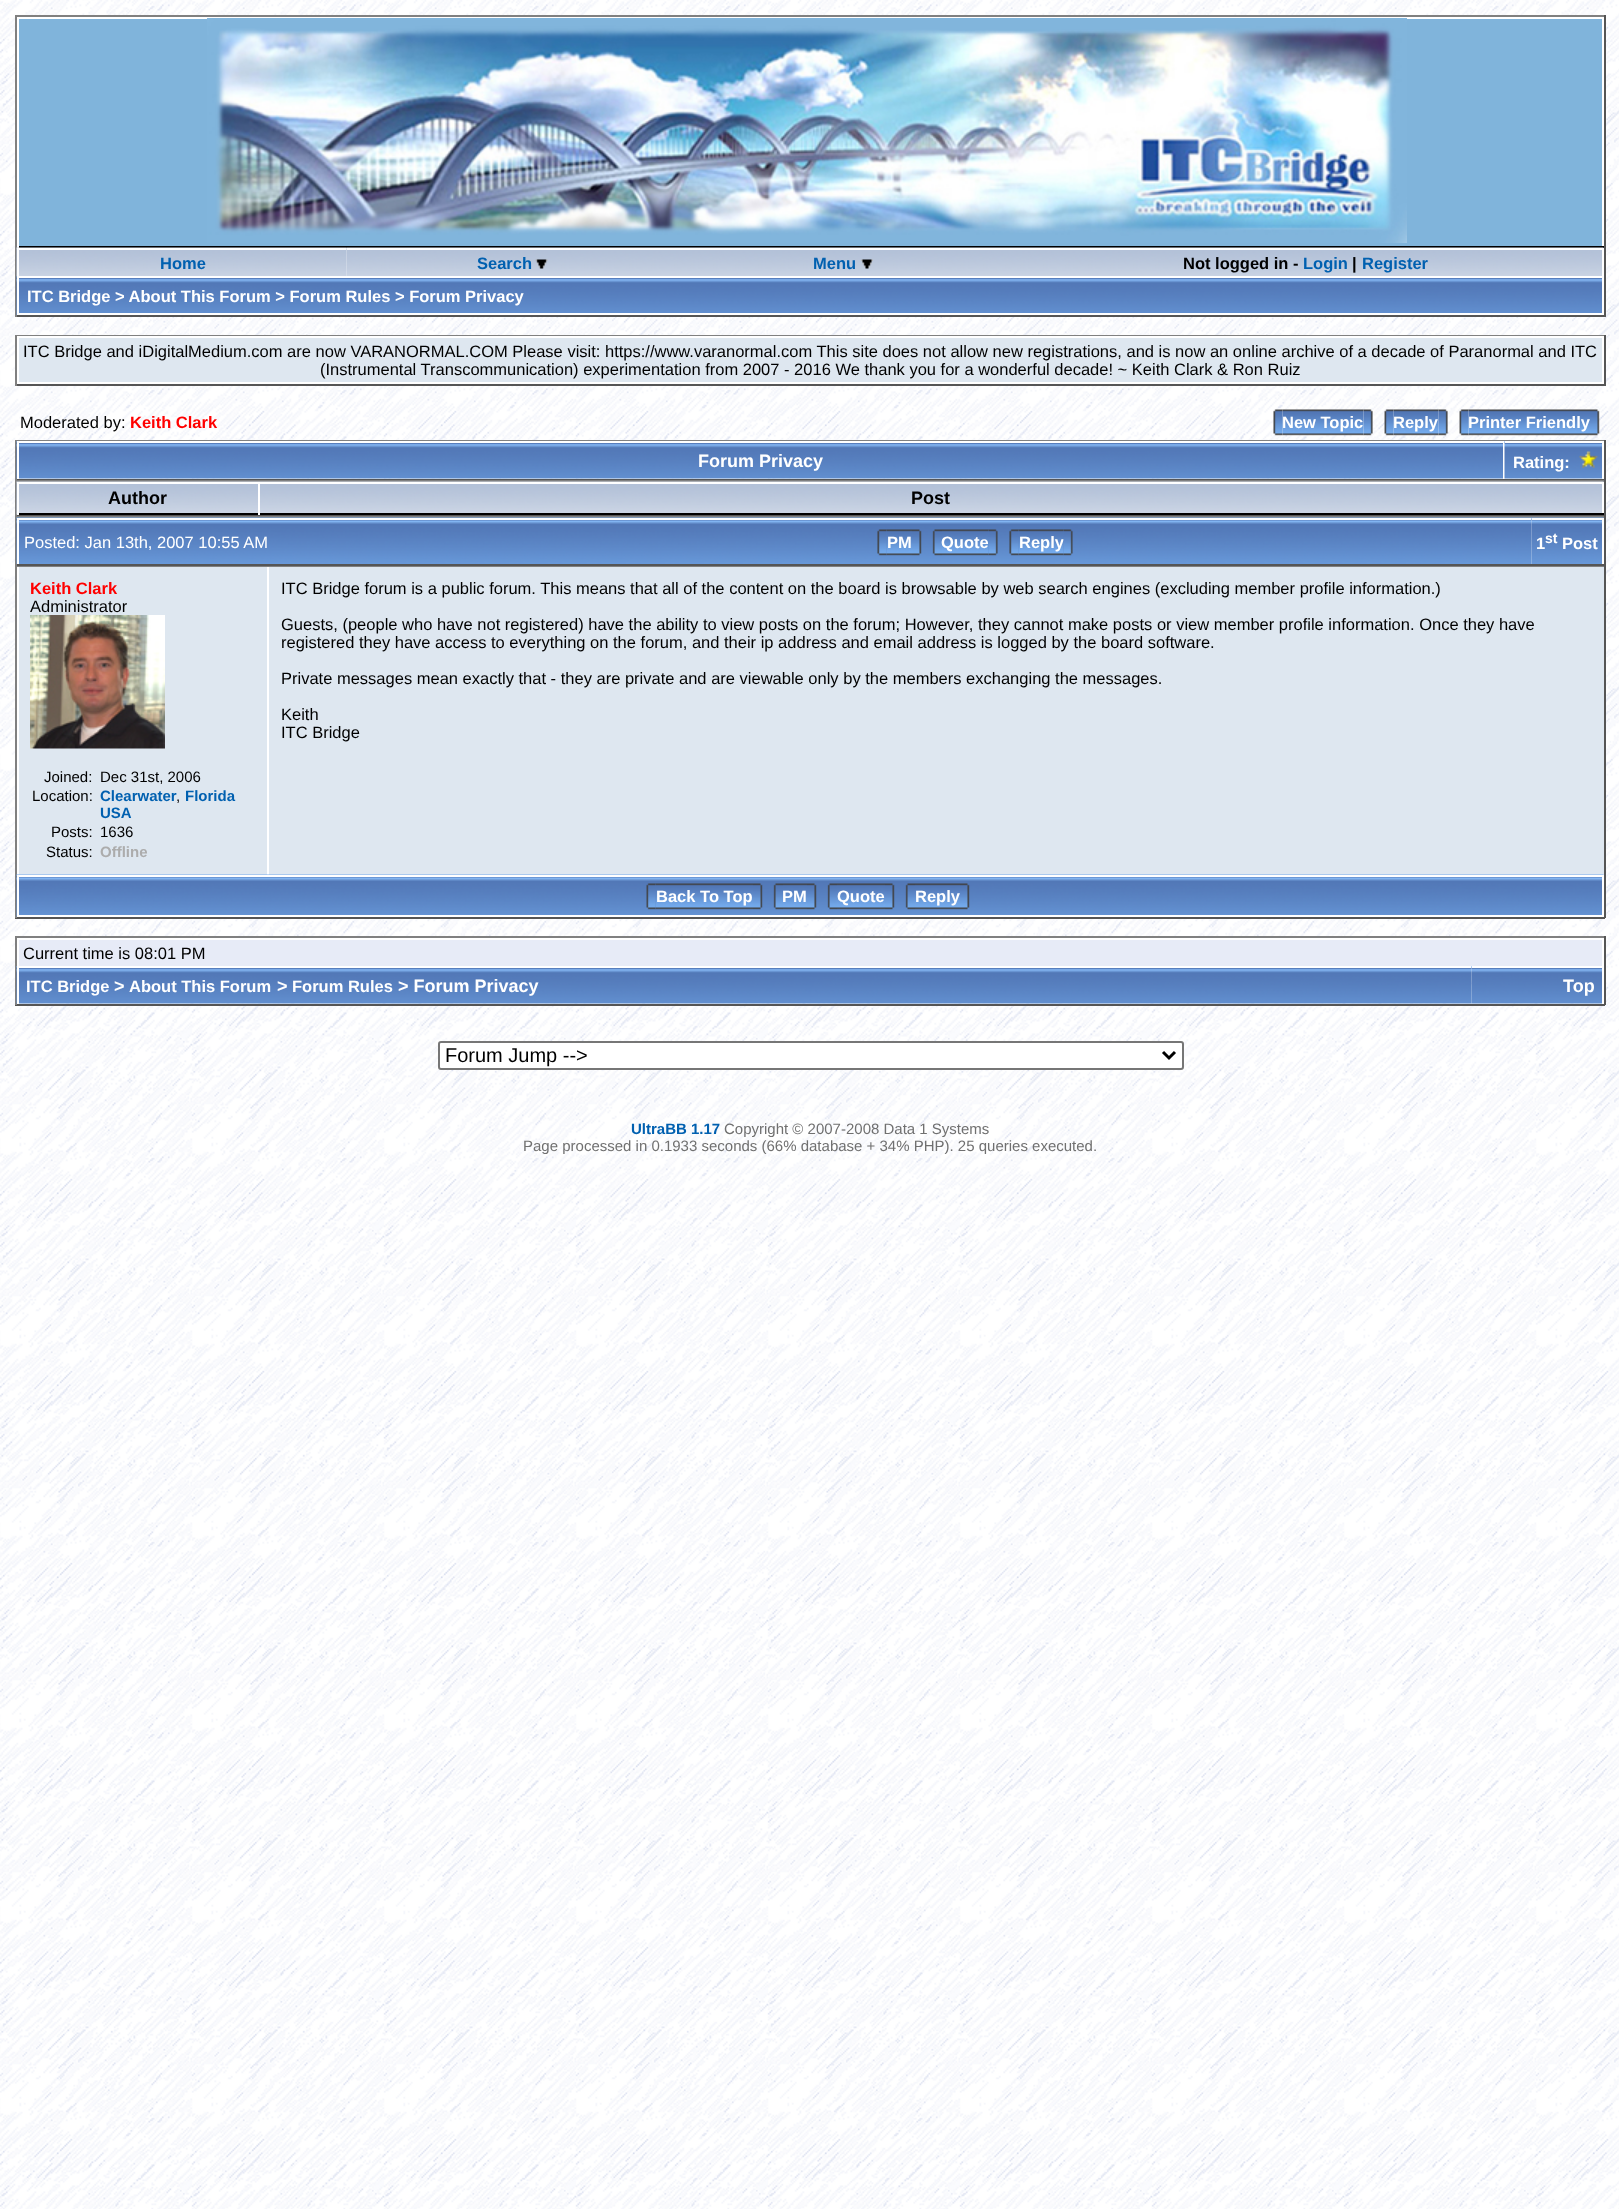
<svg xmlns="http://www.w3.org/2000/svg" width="1619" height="2209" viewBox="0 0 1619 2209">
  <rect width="100%" height="100%" fill="#fff"/>
  <image x="0" y="0" width="1619" height="2209" href="img/1.png"/>
  <path d="M15 15h1590v2H15z" fill="#808080"/>
  <path d="M1604 15h2v302H1604z" fill="#555"/>
  <path d="M15 315h1590v2H15z" fill="#555"/>
  <path d="M15 15h2v302H15z" fill="#808080"/>
  <path d="M19 19h1583v227H19z" fill="#80b4db"/>
  <path d="M17 17h1587v2H17z" fill="#fff"/>
  <path d="M1602 17h2v231H1602z" fill="#fff"/>
  <path d="M17 246h1587v2H17z" fill="#000"/>
  <path d="M17 17h2v231H17z" fill="#fff"/>
  <image x="207" y="18" width="1200" height="225" href="img/2.png"/>
  <image x="16" y="247" width="331" height="29" href="img/3.png"/>
  <path d="M17 248h330v2H17z" fill="#fff"/>
  <path d="M17 248h2v28H17z" fill="#fff"/>
  <image x="346" y="247" width="332" height="29" href="img/4.png"/>
  <path d="M347 248h331v2H347z" fill="#fff"/>
  <image x="535" y="259" width="13" height="10" href="img/5.png"/>
  <image x="678" y="247" width="330" height="29" href="img/6.png"/>
  <path d="M678 248h330v2H678z" fill="#fff"/>
  <image x="861" y="259" width="12" height="10" href="img/7.png"/>
  <image x="1008" y="247" width="596" height="29" href="img/8.png"/>
  <path d="M1008 248h596v2H1008z" fill="#fff"/>
  <path d="M1602 248h2v28H1602z" fill="#fff"/>
  <image x="16" y="276" width="1586" height="39" href="img/9.png"/>
  <path d="M18 277h1585v37H18z" fill="none" stroke="#fff" stroke-width="2"/>
  <path d="M15 335h1590v1H15z" fill="#808080"/>
  <path d="M1604 335h2v51H1604z" fill="#555"/>
  <path d="M15 384h1590v2H15z" fill="#555"/>
  <path d="M15 335h2v51H15z" fill="#808080"/>
  <path d="M18 337h1585v46H18z" fill="#dee7f0" stroke="#fff" stroke-width="2"/>
  <image x="1282" y="409" width="82" height="27" href="img/11.png"/>
  <image x="1273" y="409" width="10" height="27" href="img/10.png"/>
  <image x="1363" y="409" width="10" height="27" href="img/12.png"/>
  <image x="1393" y="409" width="46" height="27" href="img/14.png"/>
  <image x="1384" y="409" width="10" height="27" href="img/13.png"/>
  <image x="1438" y="409" width="10" height="27" href="img/15.png"/>
  <image x="1468" y="409" width="122" height="27" href="img/17.png"/>
  <image x="1459" y="409" width="10" height="27" href="img/16.png"/>
  <image x="1590" y="409" width="10" height="27" href="img/18.png"/>
  <path d="M15 440h1590v1H15z" fill="#808080"/>
  <path d="M1604 440h2v40H1604z" fill="#555"/>
  <path d="M15 479h1590v1H15z" fill="#555"/>
  <path d="M15 440h2v40H15z" fill="#808080"/>
  <image x="16" y="441" width="1487" height="38" href="img/19.png"/>
  <path d="M17 441h1488v2H17z" fill="#fff"/>
  <path d="M1503 441h2v38H1503z" fill="#fff"/>
  <path d="M17 441h2v38H17z" fill="#fff"/>
  <image x="1504" y="441" width="98" height="38" href="img/20.png"/>
  <path d="M1505 441h99v2H1505z" fill="#fff"/>
  <path d="M1602 441h2v38H1602z" fill="#fff"/>
  <image x="1579" y="451" width="19" height="17" href="img/21.png"/>
  <path d="M15 480h1590v2H15z" fill="#808080"/>
  <path d="M1604 480h2v36H1604z" fill="#555"/>
  <path d="M15 515h1590v1H15z" fill="#555"/>
  <path d="M15 480h2v36H15z" fill="#808080"/>
  <image x="16" y="481" width="242" height="34" href="img/22.png"/>
  <path d="M17 482h241v2H17z" fill="#fff"/>
  <path d="M17 513h241v2H17z" fill="#000"/>
  <path d="M17 482h2v33H17z" fill="#fff"/>
  <image x="258" y="481" width="1346" height="32" href="img/23.png"/>
  <path d="M258 482h1346v2H258z" fill="#fff"/>
  <path d="M1602 482h2v33H1602z" fill="#fff"/>
  <path d="M258 513h1346v2H258z" fill="#000"/>
  <path d="M258 482h2v33H258z" fill="#fff"/>
  <path d="M15 516h1590v2H15z" fill="#808080"/>
  <path d="M1604 516h2v50H1604z" fill="#555"/>
  <path d="M15 564h1590v2H15z" fill="#555"/>
  <path d="M15 516h2v50H15z" fill="#808080"/>
  <image x="16" y="517" width="254" height="47" href="img/24.png"/>
  <path d="M17 518h253v2H17z" fill="#fff"/>
  <path d="M17 518h2v46H17z" fill="#fff"/>
  <image x="270" y="517" width="1262" height="47" href="img/25.png"/>
  <path d="M270 518h1262v2H270z" fill="#fff"/>
  <image x="886" y="529" width="26" height="27" href="img/27.png"/>
  <image x="877" y="529" width="10" height="27" href="img/26.png"/>
  <image x="912" y="529" width="10" height="27" href="img/28.png"/>
  <image x="932" y="529" width="10" height="27" href="img/29.png"/>
  <image x="942" y="529" width="47" height="27" href="img/30.png"/>
  <image x="1018" y="529" width="46" height="27" href="img/33.png"/>
  <image x="1009" y="529" width="10" height="27" href="img/32.png"/>
  <image x="1531" y="517" width="73" height="47" href="img/35.png"/>
  <path d="M1532 518h72v2H1532z" fill="#fff"/>
  <path d="M1602 518h2v46H1602z" fill="#fff"/>
  <path d="M15 566h1590v1H15z" fill="#808080"/>
  <path d="M1604 566h2v352H1604z" fill="#555"/>
  <path d="M15 917h1590v2H15z" fill="#555"/>
  <path d="M15 566h2v352H15z" fill="#808080"/>
  <path d="M19 567h248v308H19z" fill="#dee7f0"/>
  <path d="M17 577h2v298H17z" fill="#fff"/>
  <image x="30" y="615" width="135" height="134" href="img/36.png"/>
  <path d="M269 567h1335v308H269z" fill="#dee7f0"/>
  <path d="M267 567h2v308H267z" fill="#fff"/>
  <image x="16" y="874" width="1588" height="43" href="img/37.png"/>
  <path d="M18 876h1585v40H18z" fill="none" stroke="#fff" stroke-width="2"/>
  <image x="655" y="883" width="98" height="27" href="img/39.png"/>
  <image x="646" y="883" width="10" height="27" href="img/38.png"/>
  <image x="753" y="883" width="10" height="27" href="img/40.png"/>
  <image x="773" y="883" width="10" height="27" href="img/41.png"/>
  <image x="783" y="883" width="24" height="27" href="img/42.png"/>
  <image x="807" y="883" width="10" height="27" href="img/43.png"/>
  <image x="827" y="883" width="10" height="27" href="img/44.png"/>
  <image x="837" y="883" width="48" height="27" href="img/45.png"/>
  <image x="885" y="883" width="10" height="27" href="img/43.png"/>
  <image x="905" y="883" width="10" height="27" href="img/46.png"/>
  <image x="915" y="883" width="45" height="27" href="img/47.png"/>
  <image x="960" y="883" width="10" height="27" href="img/48.png"/>
  <path d="M15 936h1590v2H15z" fill="#808080"/>
  <path d="M1604 936h2v69H1604z" fill="#555"/>
  <path d="M15 1004h1590v2H15z" fill="#555"/>
  <path d="M15 936h2v69H15z" fill="#808080"/>
  <path d="M19 940h1583v26H19z" fill="#e7ebf7"/>
  <path d="M17 938h1587v2H17z" fill="#fff"/>
  <path d="M17 938h2v28H17z" fill="#fff"/>
  <path d="M1602 938h2v28H1602z" fill="#fff"/>
  <image x="16" y="966" width="1456" height="38" href="img/49.png"/>
  <path d="M17 966h1455v2H17z" fill="#fff"/>
  <path d="M17 966h2v38H17z" fill="#fff"/>
  <image x="1471" y="966" width="131" height="38" href="img/50.png"/>
  <path d="M1472 966h132v2H1472z" fill="#fff"/>
  <path d="M1602 966h2v38H1602z" fill="#fff"/>
  <rect x="439" y="1042" width="744" height="27" rx="2" fill="#fff" stroke="#767676" stroke-width="2"/>
  <path d="M1163 1052L1169 1058L1175 1052" fill="none" stroke="#000" stroke-width="3"/>
  <g font-family="Liberation Sans" font-size="16.5" font-weight="bold" fill="#0060b0">
    <text x="160" y="269">Home</text>
    <text x="477" y="269">Search</text>
    <text x="813" y="269">Menu</text>
  </g>
  <text x="1183" y="269" font-family="Liberation Sans" font-size="16.5" font-weight="bold" fill="#000">Not logged in -</text>
  <text x="1303" y="269" font-family="Liberation Sans" font-size="16.5" font-weight="bold" fill="#0060b0">Login</text>
  <text x="1352" y="269" font-family="Liberation Sans" font-size="16.5" font-weight="bold" fill="#000">|</text>
  <text x="1362" y="269" font-family="Liberation Sans" font-size="16.5" font-weight="bold" fill="#0060b0">Register</text>
  <text x="27" y="302" font-family="Liberation Sans" font-size="16.5" font-weight="bold" fill="#fff">ITC Bridge &gt; About This Forum &gt; Forum Rules &gt; Forum Privacy</text>
  <g font-family="Liberation Sans" font-size="16.5" fill="#000">
    <text x="23" y="357">ITC Bridge and iDigitalMedium.com are now VARANORMAL.COM Please visit: https://www.varanormal.com This site does not allow new registrations, and is now an online archive of a decade of Paranormal and ITC</text>
    <text x="320" y="375">(Instrumental Transcommunication) experimentation from 2007 - 2016 We thank you for a wonderful decade! ~ Keith Clark &amp; Ron Ruiz</text>
    <text x="20" y="428">Moderated by:</text>
  </g>
  <text x="130" y="428" font-family="Liberation Sans" font-size="16.5" font-weight="bold" fill="#f00">Keith Clark</text>
  <g font-family="Liberation Sans" font-size="16.5" font-weight="bold" fill="#fff">
    <text x="1282" y="428">New Topic</text>
    <text x="1393" y="428">Reply</text>
    <text x="1468" y="428">Printer Friendly</text>
  </g>
  <text x="698" y="467" font-family="Liberation Sans" font-size="18" font-weight="bold" fill="#fff">Forum Privacy</text>
  <text x="1513" y="468" font-family="Liberation Sans" font-size="16.5" font-weight="bold" fill="#fff">Rating:</text>
  <g font-family="Liberation Sans" font-size="18" font-weight="bold" fill="#000">
    <text x="108" y="504">Author</text>
    <text x="911" y="504">Post</text>
  </g>
  <text x="24" y="548" font-family="Liberation Sans" font-size="16.5" fill="#fff">Posted: Jan 13th, 2007 10:55 AM</text>
  <g font-family="Liberation Sans" font-size="16.5" font-weight="bold" fill="#fff">
    <text x="887" y="548">PM</text>
    <text x="941" y="548">Quote</text>
  </g>
  <image x="988" y="529" width="10" height="27" href="img/31.png"/>
  <text x="1019" y="548" font-family="Liberation Sans" font-size="16.5" font-weight="bold" fill="#fff">Reply</text>
  <image x="1063" y="529" width="10" height="27" href="img/34.png"/>
  <text x="1536" y="549" font-family="Liberation Sans" font-size="16.5" font-weight="bold" fill="#fff">1</text>
  <text x="1545" y="543" font-family="Liberation Sans" font-size="14" font-weight="bold" fill="#fff">st</text>
  <text x="1562" y="549" font-family="Liberation Sans" font-size="16.5" font-weight="bold" fill="#fff">Post</text>
  <text x="30" y="594" font-family="Liberation Sans" font-size="16.5" font-weight="bold" fill="#f00">Keith Clark</text>
  <text x="30" y="612" font-family="Liberation Sans" font-size="16.5" fill="#000">Administrator</text>
  <g font-family="Liberation Sans" font-size="15" fill="#000">
    <text x="44" y="782">Joined:</text>
    <text x="100" y="782">Dec 31st, 2006</text>
    <text x="32" y="801">Location:</text>
  </g>
  <text x="100" y="801" font-family="Liberation Sans" font-size="15" font-weight="bold" fill="#0060b0">Clearwater</text>
  <text x="176" y="801" font-family="Liberation Sans" font-size="15" fill="#000">,</text>
  <g font-family="Liberation Sans" font-size="15" font-weight="bold" fill="#0060b0">
    <text x="185" y="801">Florida</text>
    <text x="100" y="818">USA</text>
  </g>
  <g font-family="Liberation Sans" font-size="15" fill="#000">
    <text x="51" y="837">Posts:</text>
    <text x="100" y="837">1636</text>
    <text x="46" y="857">Status:</text>
  </g>
  <text x="100" y="857" font-family="Liberation Sans" font-size="15" font-weight="bold" fill="#acacac">Offline</text>
  <g font-family="Liberation Sans" font-size="16.5" fill="#000">
    <text x="281" y="594">ITC Bridge forum is a public forum. This means that all of the content on the board is browsable by web search engines (excluding member profile information.)</text>
    <text x="281" y="630">Guests, (people who have not registered) have the ability to view posts on the forum; However, they cannot make posts or view member profile information. Once they have</text>
    <text x="281" y="648">registered they have access to everything on the forum, and their ip address and email address is logged by the board software.</text>
    <text x="281" y="684">Private messages mean exactly that - they are private and are viewable only by the members exchanging the messages.</text>
    <text x="281" y="720">Keith</text>
    <text x="281" y="738">ITC Bridge</text>
  </g>
  <g font-family="Liberation Sans" font-size="16.5" font-weight="bold" fill="#fff">
    <text x="656" y="902">Back To Top</text>
    <text x="782" y="902">PM</text>
    <text x="837" y="902">Quote</text>
    <text x="915" y="902">Reply</text>
  </g>
  <text x="23" y="959" font-family="Liberation Sans" font-size="16.5" fill="#000">Current time is 08:01 PM</text>
  <text x="26" y="992" font-family="Liberation Sans" font-size="16.5" font-weight="bold" fill="#fff">ITC Bridge</text>
  <text x="114" y="992" font-family="Liberation Sans" font-size="18" font-weight="bold" fill="#fff">&gt;</text>
  <text x="129" y="992" font-family="Liberation Sans" font-size="16.5" font-weight="bold" fill="#fff">About This Forum</text>
  <text x="277" y="992" font-family="Liberation Sans" font-size="18" font-weight="bold" fill="#fff">&gt;</text>
  <text x="292" y="992" font-family="Liberation Sans" font-size="16.5" font-weight="bold" fill="#fff">Forum Rules</text>
  <g font-family="Liberation Sans" font-size="18" font-weight="bold" fill="#fff">
    <text x="398" y="992">&gt; Forum Privacy</text>
    <text x="1563" y="992">Top</text>
  </g>
  <text x="445" y="1062" font-family="Liberation Sans" font-size="20" fill="#000">Forum Jump --&gt;</text>
  <text x="631" y="1134" font-family="Liberation Sans" font-size="15" font-weight="bold" fill="#0060b0">UltraBB 1.17</text>
  <g font-family="Liberation Sans" font-size="15" fill="#707070">
    <text x="724" y="1134">Copyright © 2007-2008 Data 1 Systems</text>
    <text x="523" y="1151">Page processed in 0.1933 seconds (66% database + 34% PHP). 25 queries executed.</text>
  </g>
</svg>
